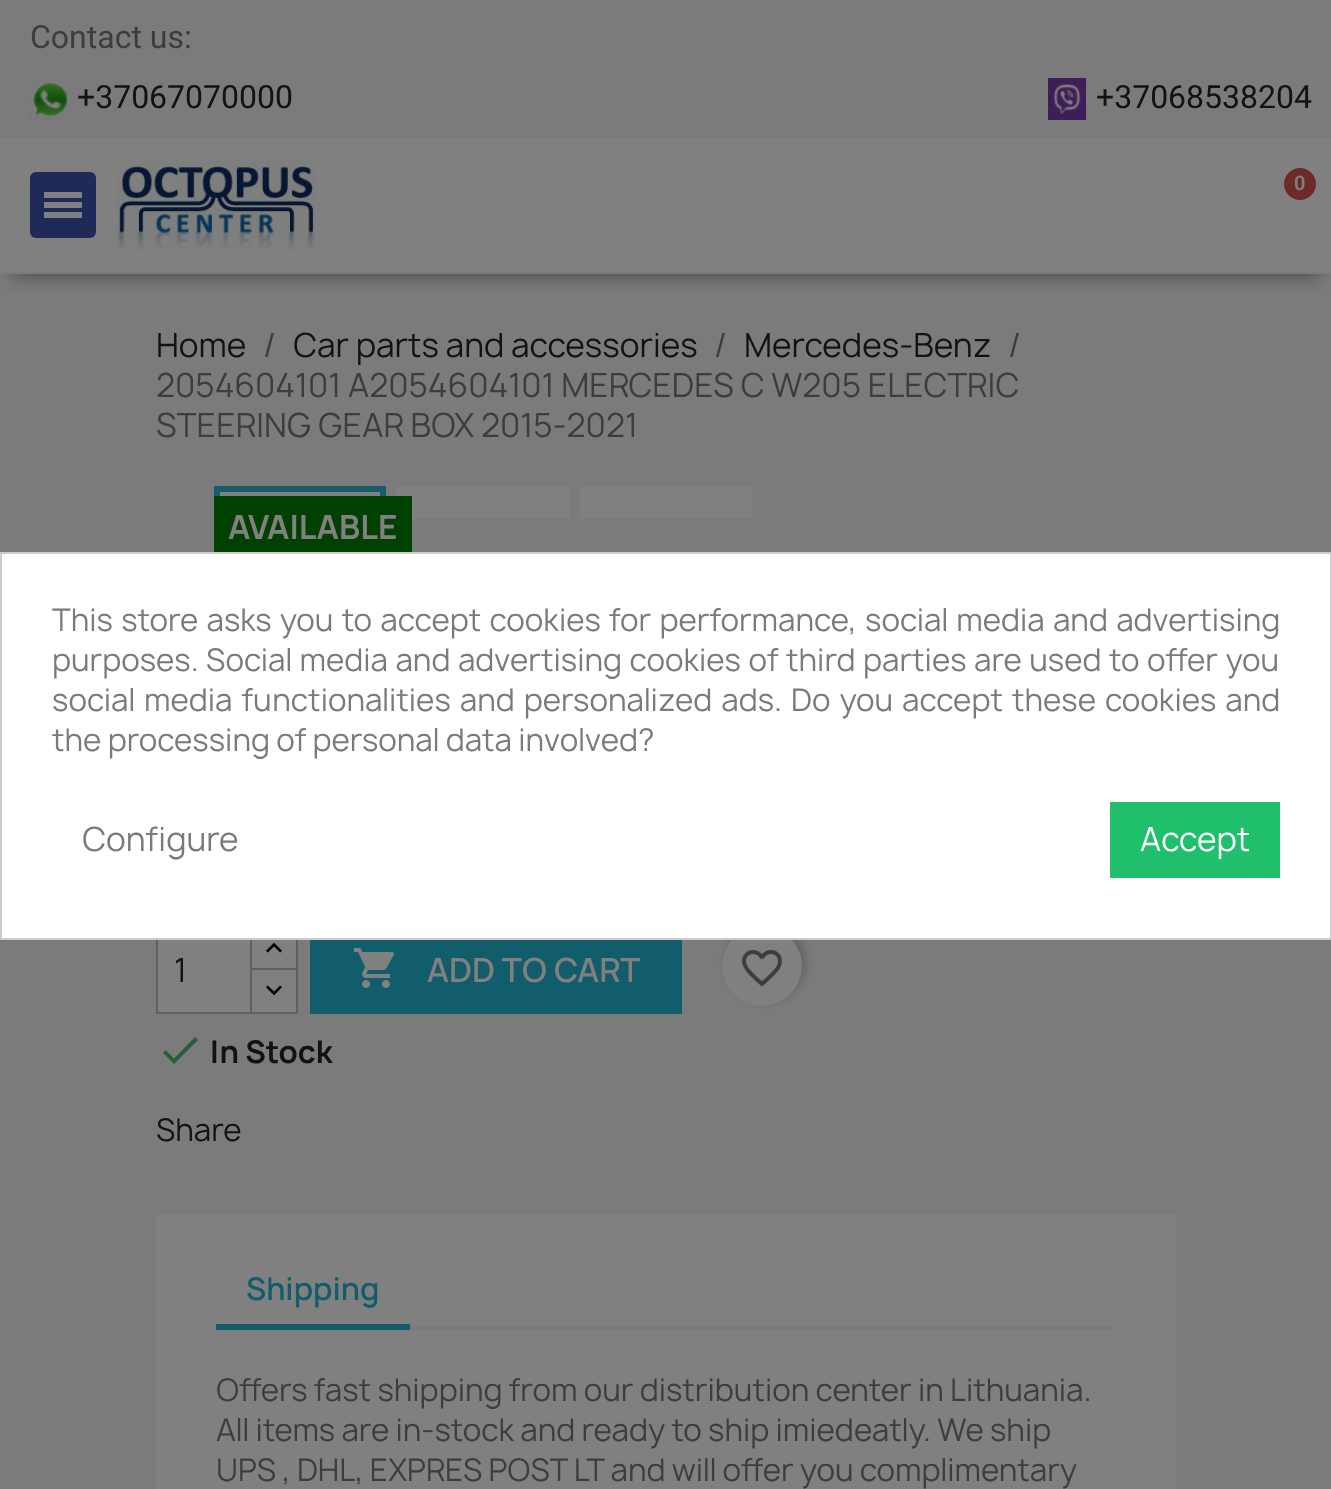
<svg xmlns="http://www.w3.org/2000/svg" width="1331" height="1489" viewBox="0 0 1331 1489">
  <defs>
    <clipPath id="clip1"><path d="M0 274h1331v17H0z"/></clipPath>
  </defs>
  <rect width="100%" height="100%" fill="#808080"/>
  <path d="M0 0h1331v138H0z" fill="#7b7b7b"/>
  <image x="30" y="82" width="40" height="38" href="img/1.png"/>
  <image x="1048" y="78" width="38" height="42" href="img/2.png"/>
  <path d="M0 274h1331v1215H0z" fill="#7b7b7b"/>
  <g clip-path="url(#clip1)">
    <path d="M12 164h1308v110H12z" fill="#00000080" filter="blur(10px)"/>
  </g>
  <rect x="30" y="172" width="66" height="66" rx="6" fill="#202a59"/>
  <path d="M44 202h38v6H44z" fill="#808080"/>
  <path d="M44 192h38v6H44z" fill="#808080"/>
  <path d="M44 212h38v6H44z" fill="#808080"/>
  <image x="116" y="158" width="200" height="92" href="img/3.png"/>
  <circle cx="1300" cy="184" r="16" fill="#6d2a28"/>
  <path d="M0 272h1331v2H0z" fill="#7b7b7b"/>
  <path d="M220 492h160v4H220z" fill="#808080"/>
  <path d="M217 489h166v38H217z" fill="none" stroke="#185b69" stroke-width="6"/>
  <path d="M396 486h174v32H396z" fill="#808080"/>
  <path d="M580 486h172v32H580z" fill="#808080"/>
  <path d="M214 496h198v56H214z" fill="#004000"/>
  <path d="M158 940h92v72H158z" fill="#808080"/>
  <path d="M252 940h44v28H252z" fill="#808080"/>
  <path d="M251 927h46v44H251z" fill="none" stroke="#606060" stroke-width="2"/>
  <path d="M251 969h46v44H251z" fill="#808080" stroke="#606060" stroke-width="2"/>
  <path d="M157 927h94v86H157z" fill="none" stroke="#606060" stroke-width="2"/>
  <image x="266" y="942" width="16" height="11" href="img/4.png"/>
  <image x="266" y="985" width="16" height="11" href="img/5.png"/>
  <path d="M310 940h372v74H310z" fill="#125d6c"/>
  <image x="353" y="948" width="41" height="40" href="img/6.png"/>
  <rect x="726" y="922" width="80" height="80" rx="40" fill="#00000033" filter="blur(4px)"/>
  <circle cx="762" cy="966" r="40" fill="#808080"/>
  <image x="742" y="950" width="40" height="37" href="img/7.png"/>
  <path d="M174 1058.5L195 1037L198 1040L174 1064L163 1053L165.5 1050Z" fill="#265e36"/>
  <path d="M156 1214h1020v275H156z" fill="#808080"/>
  <path d="M410 1326h706v4H410z" fill="#7b7b7b"/>
  <path d="M216 1324h194v6H216z" fill="#125d6c"/>
  <path d="M1 553h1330v386H1z" fill="#fff" stroke="#ccc" stroke-width="2"/>
  <path d="M1110 802h170v76H1110z" fill="#20bf6b"/>
  <text x="30" y="48" font-family="Roboto" font-size="32" fill="#3d3d3d">Contact us:</text>
  <g font-family="Roboto" font-size="32" fill="#121212">
    <text x="77" y="108">+37067070000</text>
    <text x="1096" y="108">+37068538204</text>
  </g>
  <text x="1294" y="190" font-family="Roboto" font-size="20" font-weight="600" fill="#808080">0</text>
  <text x="156" y="357" font-family="Manrope" font-size="32" fill="#121212">Home</text>
  <text x="263" y="357" font-family="Manrope" font-size="32" fill="#3d3d3d">/</text>
  <text x="293" y="357" font-family="Manrope" font-size="32" fill="#121212">Car parts and accessories</text>
  <text x="714" y="357" font-family="Manrope" font-size="32" fill="#3d3d3d">/</text>
  <text x="744" y="357" font-family="Manrope" font-size="32" fill="#121212">Mercedes-Benz</text>
  <g font-family="Manrope" font-size="32" fill="#3d3d3d">
    <text x="1008" y="357">/</text>
    <text x="156" y="397">2054604101 A2054604101 MERCEDES C W205 ELECTRIC</text>
    <text x="156" y="437">STEERING GEAR BOX 2015-2021</text>
  </g>
  <text x="228" y="539" font-family="Manrope" font-size="32" font-weight="bold" fill="#808080">AVAILABLE</text>
  <text x="174" y="982" font-family="Manrope" font-size="32" fill="#121212">1</text>
  <text x="427" y="982" font-family="Manrope" font-size="32" font-weight="600" fill="#808080">ADD TO CART</text>
  <text x="210" y="1063" font-family="Manrope" font-size="30" font-weight="bold" fill="#121212">In Stock</text>
  <text x="156" y="1141" font-family="Manrope" font-size="30" fill="#121212">Share</text>
  <text x="246" y="1300" font-family="Manrope" font-size="30" font-weight="600" fill="#125d6c">Shipping</text>
  <g font-family="Manrope" font-size="30" fill="#3d3d3d">
    <text x="216" y="1401">Offers fast shipping from our distribution center in Lithuania.</text>
    <text x="216" y="1441">All items are in-stock and ready to ship imiedeatly. We ship</text>
    <text x="216" y="1481">UPS , DHL, EXPRES POST LT and will offer you complimentary</text>
  </g>
  <g font-family="Manrope" font-size="30" fill="#7a7a7a">
    <text x="52" y="631" word-spacing="2">This store asks you to accept cookies for performance, social media and advertising</text>
    <text x="52" y="671" word-spacing="1.25">purposes. Social media and advertising cookies of third parties are used to offer you</text>
    <text x="52" y="711" word-spacing="2.75">social media functionalities and personalized ads. Do you accept these cookies and</text>
    <text x="52" y="751">the processing of personal data involved?</text>
  </g>
  <text x="82" y="851" font-family="Manrope" font-size="32" fill="#7a7a7a">Configure</text>
  <text x="1140" y="851" font-family="Manrope" font-size="32" fill="#fff">Accept</text>
</svg>
